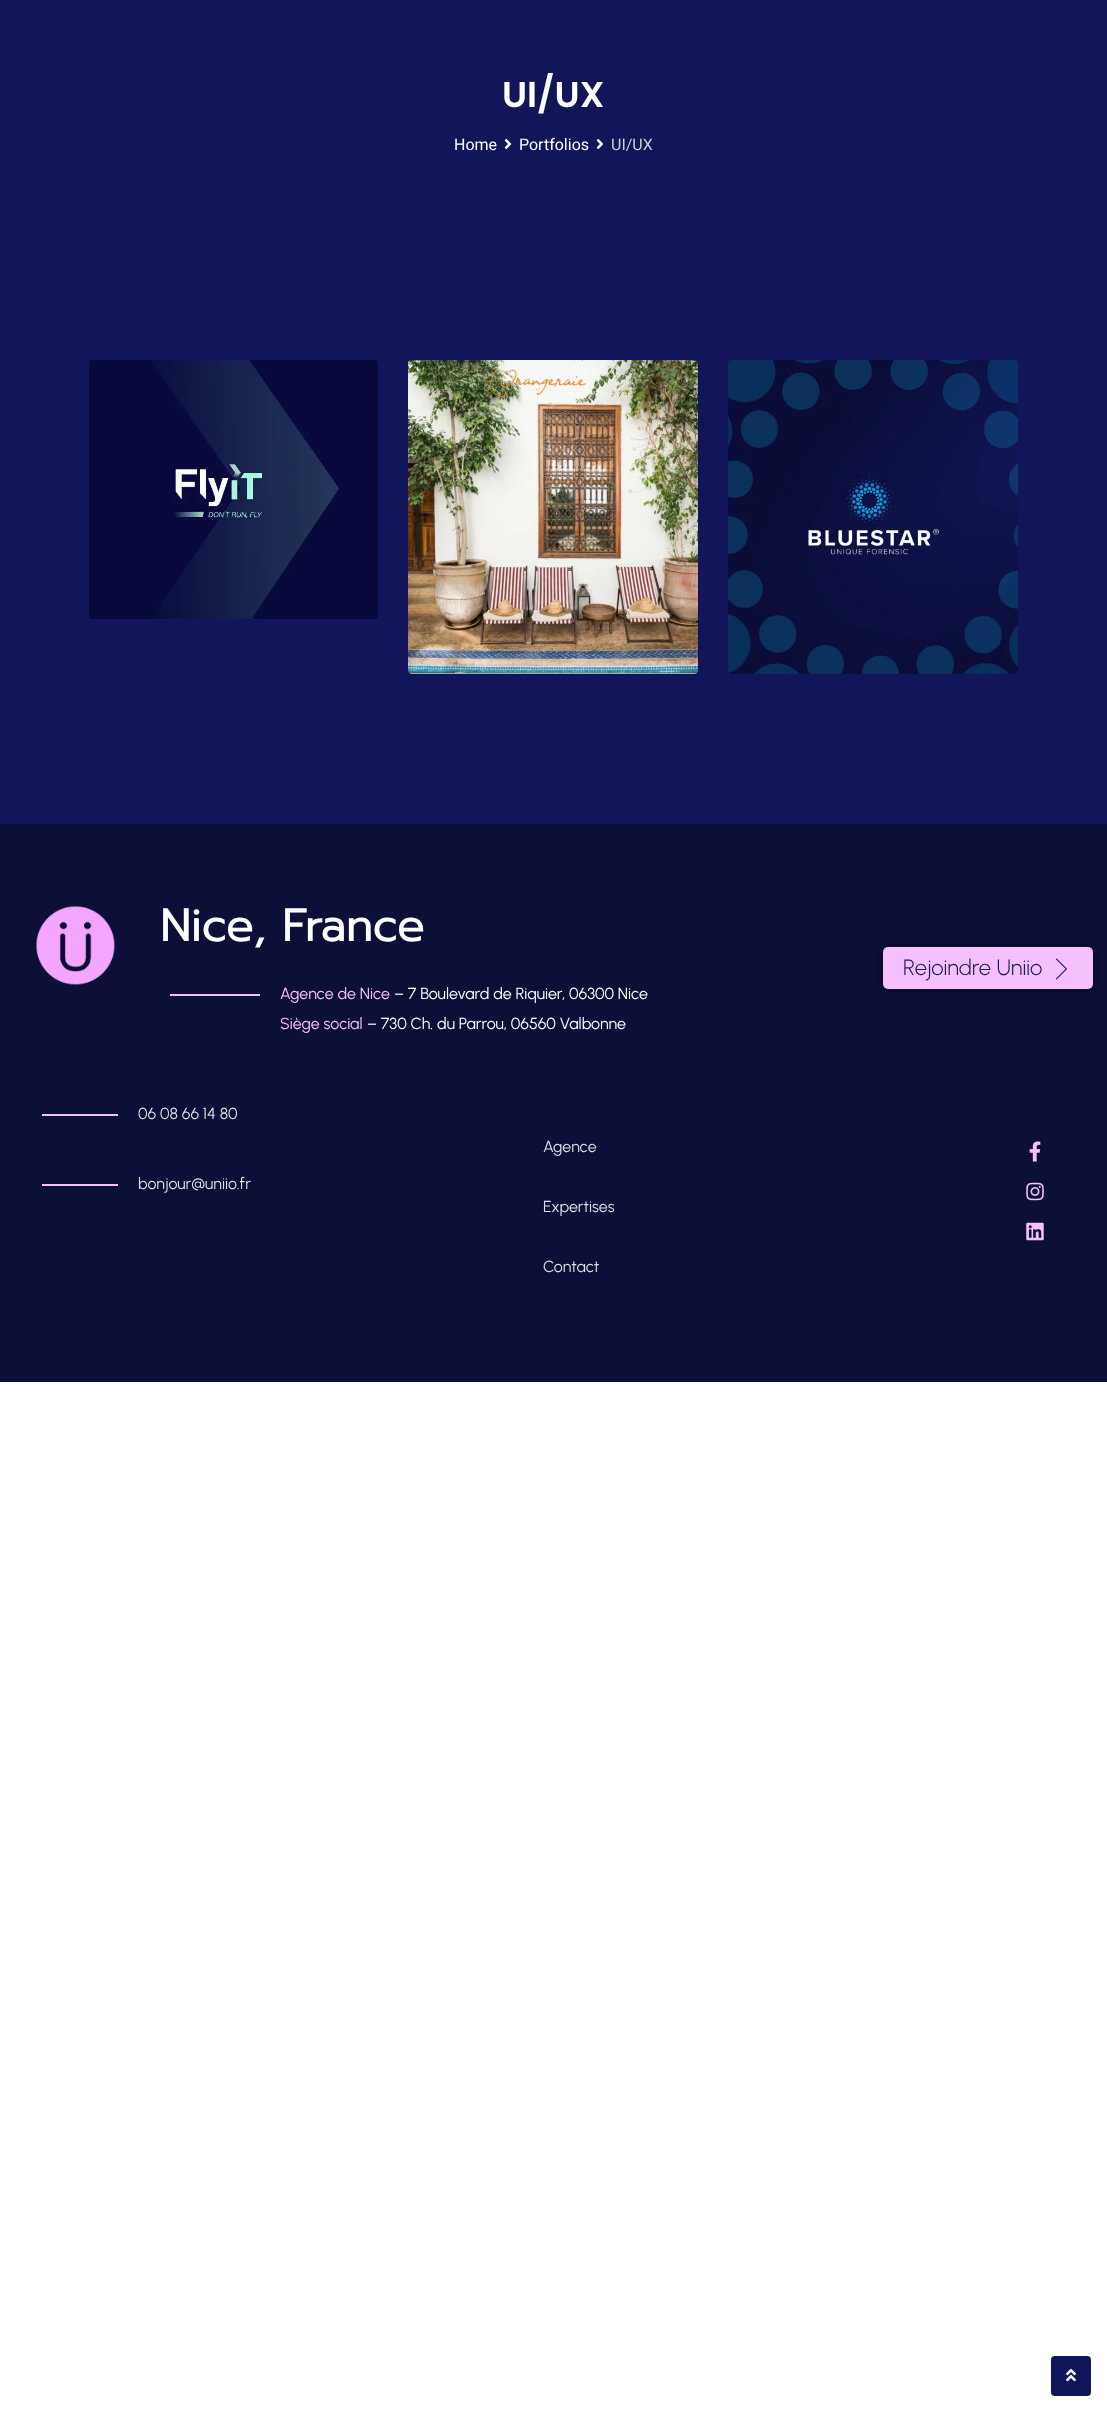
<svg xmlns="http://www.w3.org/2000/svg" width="1107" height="2412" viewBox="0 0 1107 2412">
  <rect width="100%" height="100%" fill="#fff"/>
  <path d="M0 0h1107v824H0z" fill="#13155b"/>
  <image x="504" y="139" width="8" height="10" href="img/1.png"/>
  <image x="596" y="139" width="8" height="10" href="img/1.png"/>
  <image x="89" y="360" width="289" height="259" href="img/2.png"/>
  <image x="408" y="360" width="290" height="314" href="img/3.png"/>
  <image x="728" y="360" width="290" height="314" href="img/4.png"/>
  <path d="M0 824h1107v558H0z" fill="#0c0f38"/>
  <image x="36" y="906" width="79" height="79" href="img/5.png"/>
  <path d="M170 994h90v2H170z" fill="#f5c0fd"/>
  <rect x="883" y="947" width="210" height="42" rx="5" fill="#00000080" filter="blur(5px)"/>
  <rect x="883" y="947" width="210" height="42" rx="5" fill="#f5c0fd"/>
  <image x="1056" y="958" width="11" height="22" href="img/6.png"/>
  <path d="M42 1114h76v2H42z" fill="#f5c0fd"/>
  <path d="M42 1184h76v2H42z" fill="#f5c0fd"/>
  <image x="1029" y="1141" width="12" height="21" href="img/7.png"/>
  <image x="1026" y="1182" width="18" height="19" href="img/8.png"/>
  <image x="1026" y="1222" width="18" height="19" href="img/9.png"/>
  <rect x="1051" y="2356" width="40" height="40" rx="4" fill="#13155b"/>
  <image x="1066" y="2368" width="10" height="14" href="img/10.png"/>
  <text x="502" y="107" font-family="Poppins" font-size="36" font-weight="600" fill="#fff">UI/UX</text>
  <g font-family="Roboto" font-size="16" fill="#fff">
    <text x="454" y="150">Home</text>
    <text x="519" y="150">Portfolios</text>
  </g>
  <text x="611" y="150" font-family="Roboto" font-size="16" fill="#cecece">UI/UX</text>
  <text x="160" y="941" font-family="Prompt" font-size="45" font-weight="bold" fill="#fff">Nice, France</text>
  <text x="280" y="999" font-family="Urbanist" font-size="16" fill="#f5c0fd">Agence de Nice</text>
  <text x="394" y="999" font-family="Urbanist" font-size="16" fill="#fff">– 7 Boulevard de Riquier, 06300 Nice</text>
  <text x="280" y="1029" font-family="Urbanist" font-size="16" fill="#f5c0fd">Siège social</text>
  <text x="367" y="1029" font-family="Urbanist" font-size="16" fill="#fff">– 730 Ch. du Parrou, 06560 Valbonne</text>
  <text x="903" y="975" font-family="Urbanist" font-size="22" font-weight="300" fill="#151b65">Rejoindre Uniio</text>
  <g font-family="Urbanist" font-size="16" fill="#dedede">
    <text x="138" y="1119">06 08 66 14 80</text>
    <text x="138" y="1189">bonjour@uniio.fr</text>
    <text x="543" y="1152">Agence</text>
    <text x="543" y="1212">Expertises</text>
    <text x="543" y="1272">Contact</text>
  </g>
</svg>
